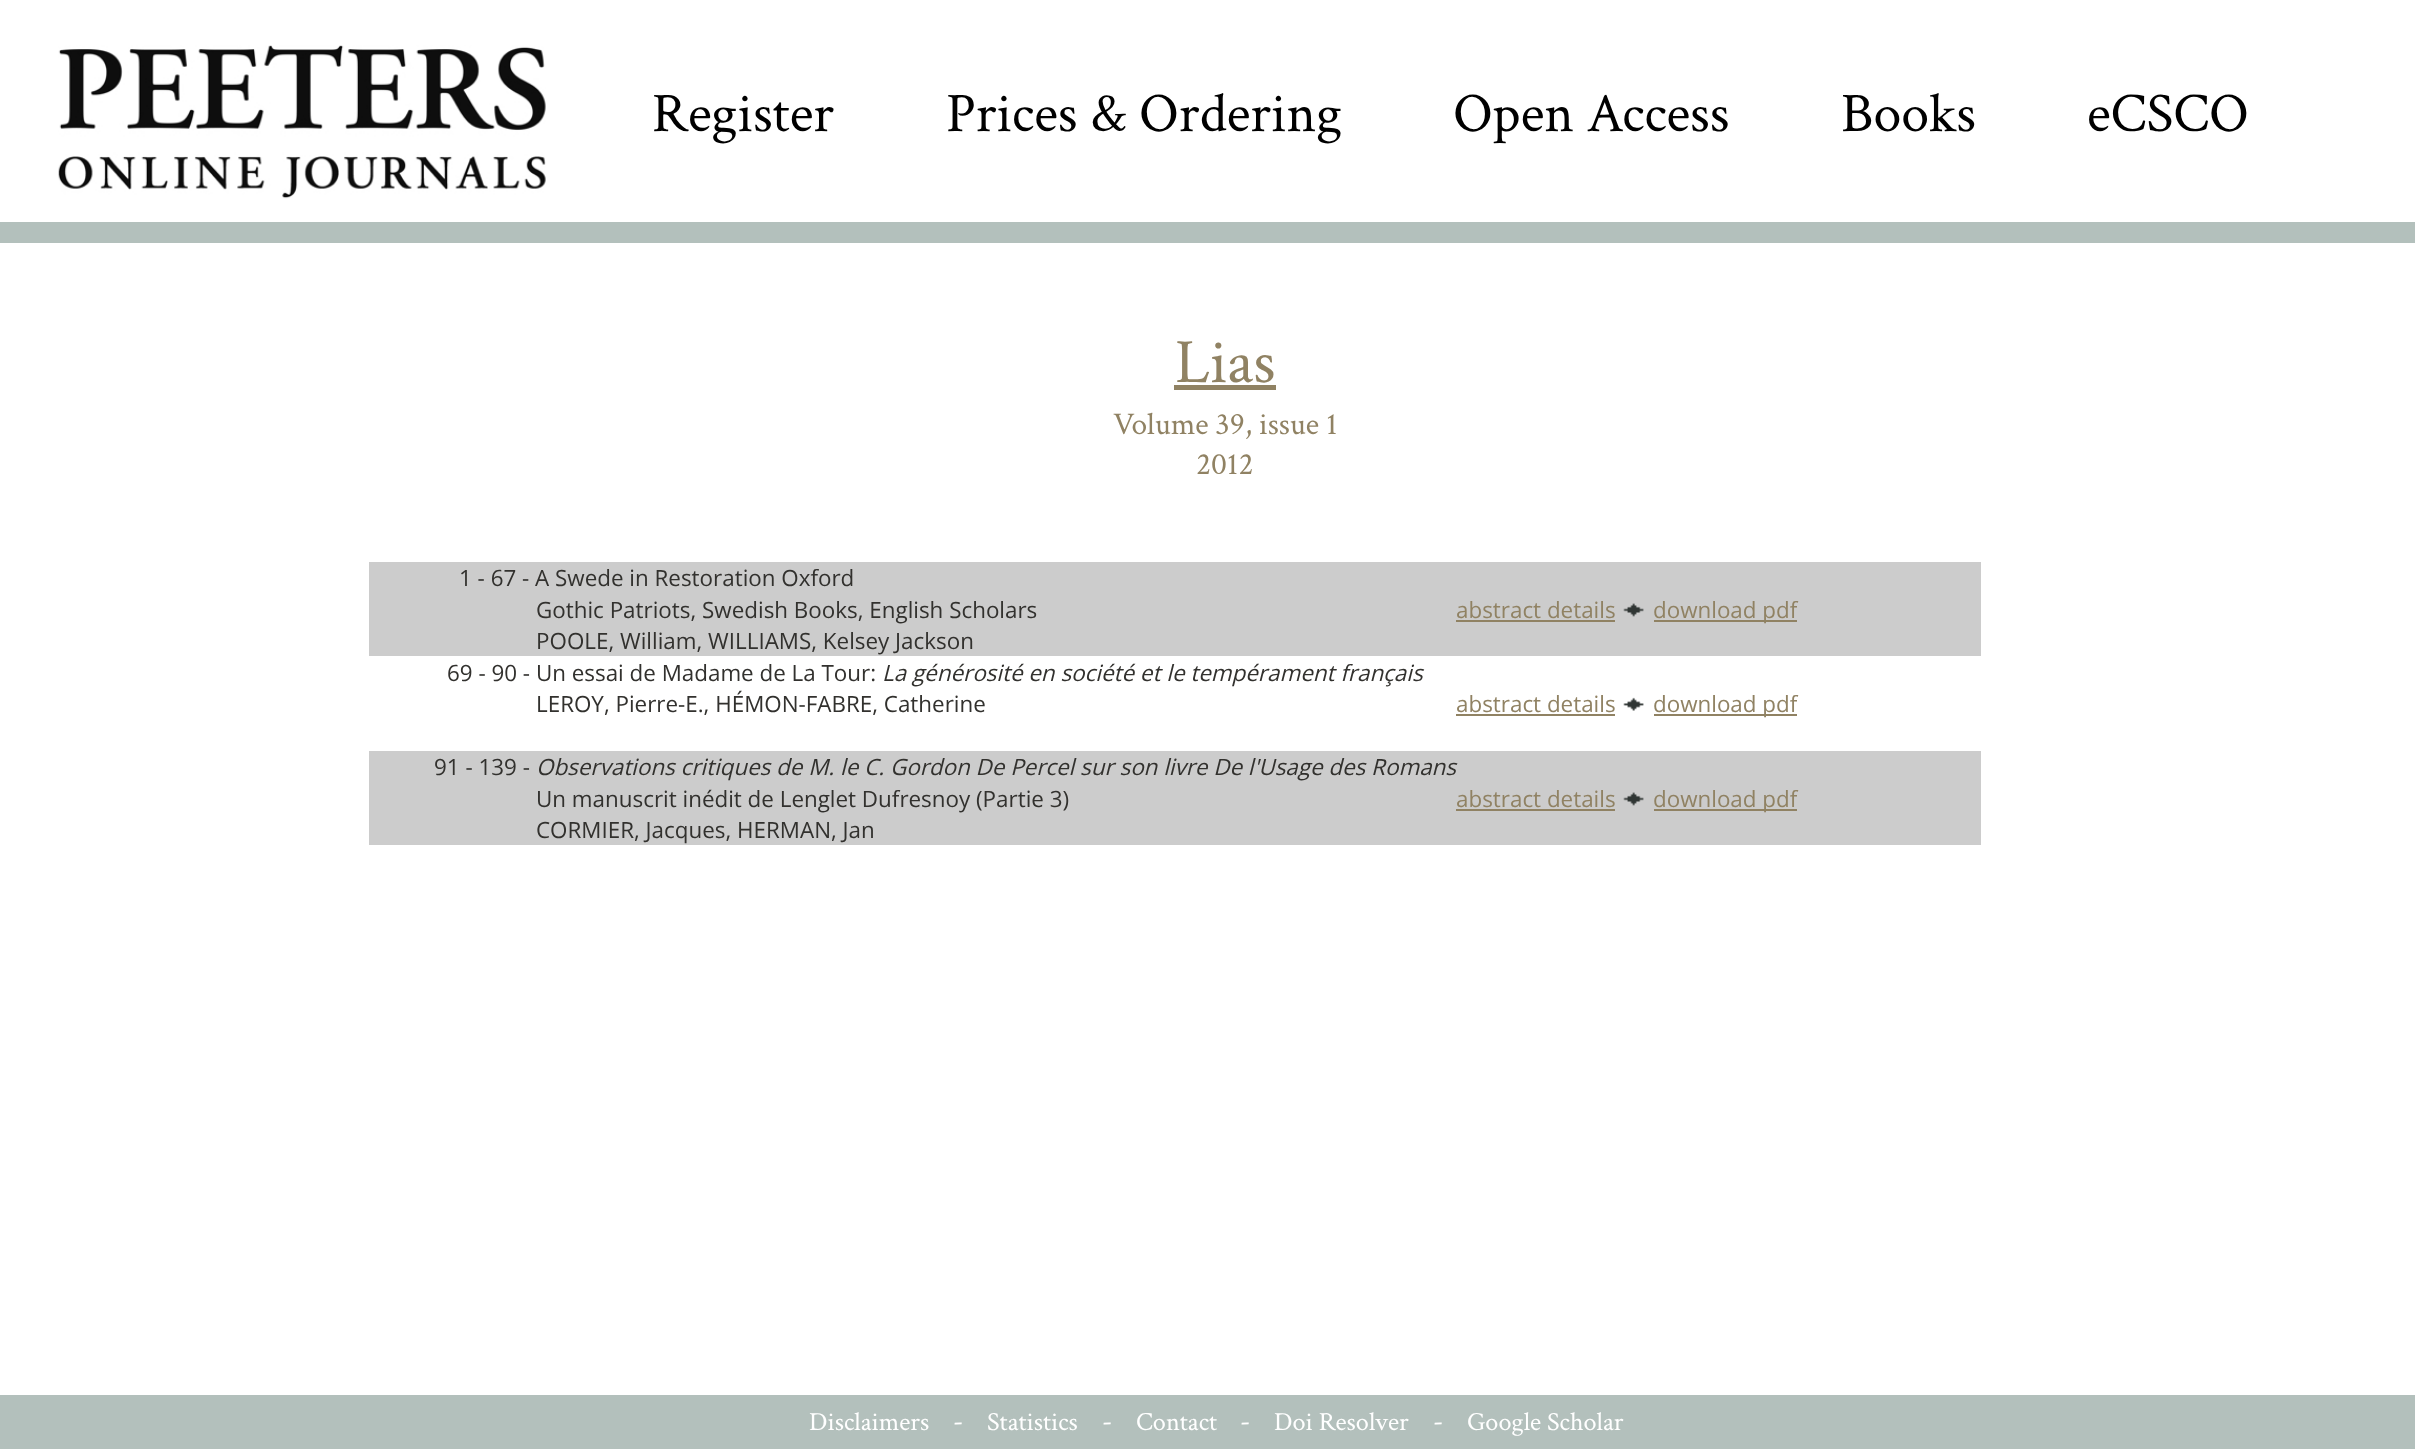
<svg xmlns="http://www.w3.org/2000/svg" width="2415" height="1449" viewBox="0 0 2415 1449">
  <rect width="100%" height="100%" fill="#fff"/>
  <image x="58" y="45" width="488" height="154" href="img/1.png"/>
  <path d="M0 222h2415v21H0z" fill="#b3c0bc"/>
  <path d="M1174 385h102v5H1174z" fill="#908263"/>
  <path d="M369 562h1612v94H369z" fill="#ccc"/>
  <path d="M1456 620h159v2H1456z" fill="#908263"/>
  <image x="1623" y="603" width="21" height="14" href="img/2.png"/>
  <path d="M1654 620h143v2H1654z" fill="#908263"/>
  <path d="M1456 714h159v2H1456z" fill="#908263"/>
  <image x="1623" y="697" width="21" height="14" href="img/3.png"/>
  <path d="M1654 714h143v2H1654z" fill="#908263"/>
  <path d="M369 751h1612v94H369z" fill="#ccc"/>
  <path d="M1456 809h159v2H1456z" fill="#908263"/>
  <image x="1623" y="792" width="21" height="14" href="img/2.png"/>
  <path d="M1654 809h143v2H1654z" fill="#908263"/>
  <path d="M0 1395h2415v54H0z" fill="#b3c0bc"/>
  <g font-family="Crimson Text" font-size="56" fill="#000">
    <text x="652" y="131">Register</text>
    <text x="946" y="131">Prices &amp; Ordering</text>
    <text x="1453" y="131">Open Access</text>
    <text x="1841" y="131">Books</text>
    <text x="2087" y="131">eCSCO</text>
  </g>
  <text x="1175" y="382" font-family="Crimson Text" font-size="63" fill="#908263">Lias</text>
  <g font-family="Crimson Text" font-size="31.5" fill="#908263">
    <text x="1113" y="434">Volume 39, issue 1</text>
    <text x="1196" y="474">2012</text>
  </g>
  <g font-family="Open Sans" font-size="22.4" fill="#32312e">
    <text x="459" y="586">1 - 67 - A Swede in Restoration Oxford</text>
    <text x="536" y="618">Gothic Patriots, Swedish Books, English Scholars</text>
    <text x="536" y="649">POOLE, William, WILLIAMS, Kelsey Jackson</text>
  </g>
  <g font-family="Open Sans" font-size="22.4" fill="#908263">
    <text x="1456" y="618">abstract details</text>
    <text x="1653" y="618">download pdf</text>
  </g>
  <text x="882" y="681" font-family="Open Sans" font-size="22.4" font-style="italic" fill="#32312e">La générosité en société et le tempérament français</text>
  <g font-family="Open Sans" font-size="22.4" fill="#32312e">
    <text x="536" y="712">LEROY, Pierre-E., HÉMON-FABRE, Catherine</text>
    <text x="447" y="681">69 - 90 - Un essai de Madame de La Tour:</text>
  </g>
  <g font-family="Open Sans" font-size="22.4" fill="#908263">
    <text x="1456" y="712">abstract details</text>
    <text x="1653" y="712">download pdf</text>
  </g>
  <text x="434" y="775" font-family="Open Sans" font-size="22.4" fill="#32312e">91 - 139 -</text>
  <text x="536" y="775" font-family="Open Sans" font-size="22.4" font-style="italic" fill="#32312e">Observations critiques de M. le C. Gordon De Percel sur son livre De l'Usage des Romans</text>
  <g font-family="Open Sans" font-size="22.4" fill="#32312e">
    <text x="536" y="807">Un manuscrit inédit de Lenglet Dufresnoy (Partie 3)</text>
    <text x="536" y="838">CORMIER, Jacques, HERMAN, Jan</text>
  </g>
  <g font-family="Open Sans" font-size="22.4" fill="#908263">
    <text x="1456" y="807">abstract details</text>
    <text x="1653" y="807">download pdf</text>
  </g>
  <text x="809" y="1430" font-family="Crimson Text" font-size="26.25" fill="#fff">Disclaimers</text>
  <text x="953" y="1430" font-family="Crimson Text" font-size="28" fill="#fff">-</text>
  <text x="987" y="1430" font-family="Crimson Text" font-size="26.25" fill="#fff">Statistics</text>
  <text x="1102" y="1430" font-family="Crimson Text" font-size="28" fill="#fff">-</text>
  <text x="1136" y="1430" font-family="Crimson Text" font-size="26.25" fill="#fff">Contact</text>
  <text x="1240" y="1430" font-family="Crimson Text" font-size="28" fill="#fff">-</text>
  <text x="1274" y="1430" font-family="Crimson Text" font-size="26.25" fill="#fff">Doi Resolver</text>
  <text x="1433" y="1430" font-family="Crimson Text" font-size="28" fill="#fff">-</text>
  <text x="1467" y="1430" font-family="Crimson Text" font-size="26.25" fill="#fff">Google Scholar</text>
</svg>
